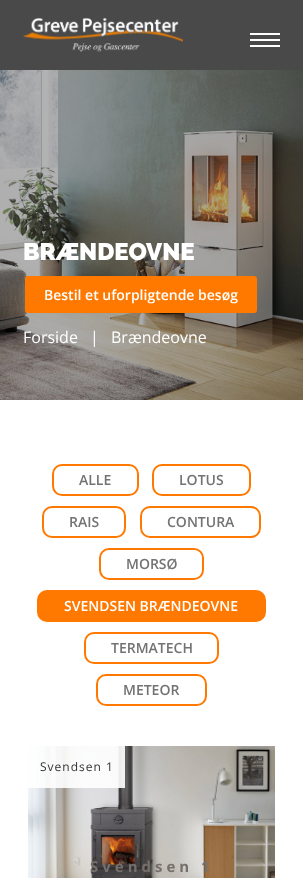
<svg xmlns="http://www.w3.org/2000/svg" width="303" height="878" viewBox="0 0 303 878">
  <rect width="100%" height="100%" fill="#fff"/>
  <path d="M0 0h303v70H0z" fill="#494949"/>
  <image x="23" y="18" width="160" height="34" href="img/1.png"/>
  <path d="M250 33h30v2H250z" fill="#fff"/>
  <path d="M250 39h30v2H250z" fill="#fff"/>
  <path d="M250 45h30v2H250z" fill="#fff"/>
  <image x="0" y="70" width="303" height="330" href="img/2.png"/>
  <rect x="25" y="276" width="232" height="37" rx="3" fill="#ff7900"/>
  <rect x="53" y="465" width="85" height="30" rx="9" fill="none" stroke="#ff7900" stroke-width="2"/>
  <rect x="153" y="465" width="97" height="30" rx="9" fill="none" stroke="#ff7900" stroke-width="2"/>
  <rect x="43" y="507" width="82" height="30" rx="9" fill="none" stroke="#ff7900" stroke-width="2"/>
  <rect x="141" y="507" width="119" height="30" rx="9" fill="none" stroke="#ff7900" stroke-width="2"/>
  <rect x="100" y="549" width="103" height="30" rx="9" fill="none" stroke="#ff7900" stroke-width="2"/>
  <rect x="38" y="591" width="227" height="30" rx="9" fill="#ff7900" stroke="#ff7900" stroke-width="2"/>
  <rect x="85" y="633" width="133" height="30" rx="9" fill="none" stroke="#ff7900" stroke-width="2"/>
  <rect x="97" y="675" width="109" height="30" rx="9" fill="none" stroke="#ff7900" stroke-width="2"/>
  <image x="28" y="746" width="247" height="132" href="img/3.png"/>
  <path d="M28 746h97v42H28z" fill="#ffffffe6"/>
  <text x="23" y="260" font-family="Raleway" font-size="24" font-weight="900" fill="#fff">BRÆNDEOVNE</text>
  <text x="44" y="300" font-family="Open Sans" font-size="14" font-weight="600" fill="#fff">Bestil et uforpligtende besøg</text>
  <g font-family="Open Sans" font-size="16" fill="#fff">
    <text x="23" y="343">Forside</text>
    <text x="90" y="343">|</text>
    <text x="111" y="343">Brændeovne</text>
  </g>
  <g font-family="Open Sans" font-size="14" font-weight="600" fill="#737373">
    <text x="79" y="485">ALLE</text>
    <text x="179" y="485">LOTUS</text>
    <text x="69" y="527">RAIS</text>
    <text x="167" y="527">CONTURA</text>
    <text x="126" y="569">MORSØ</text>
  </g>
  <text x="64" y="611" font-family="Open Sans" font-size="14" font-weight="600" fill="#fff">SVENDSEN BRÆNDEOVNE</text>
  <g font-family="Open Sans" font-size="14" font-weight="600" fill="#737373">
    <text x="111" y="653">TERMATECH</text>
    <text x="123" y="695">METEOR</text>
  </g>
  <text x="40" y="771" font-family="Open Sans" font-size="12" letter-spacing="1" fill="#333">Svendsen 1</text>
  <text x="90" y="872" font-family="Open Sans" font-size="15" font-weight="bold" letter-spacing="4" fill="#76706b">Svendsen 1</text>
</svg>
